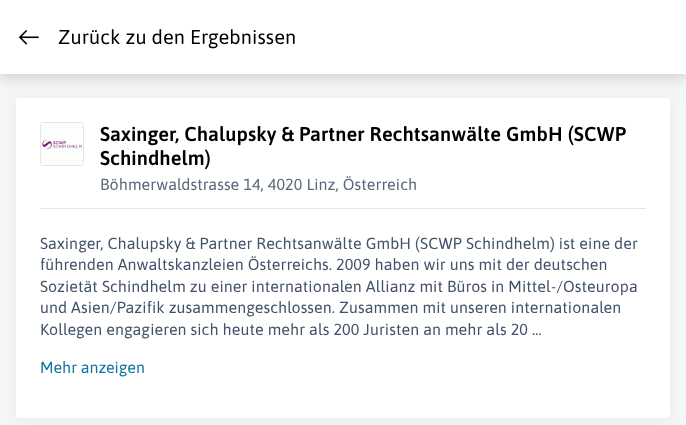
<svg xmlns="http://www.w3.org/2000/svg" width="686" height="425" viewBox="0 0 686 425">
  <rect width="100%" height="100%" fill="#f5f7f7"/>
  <rect x="16" y="100" width="654" height="320" rx="3" fill="#0000000d" filter="blur(8px)"/>
  <rect x="16" y="98" width="654" height="320" rx="3" fill="#fff"/>
  <path d="M0 2h686v74H0z" fill="#00000033" filter="blur(8px)"/>
  <path d="M0 0h686v74H0z" fill="#fff"/>
  <image x="19" y="30" width="20" height="15" href="img/1.png"/>
  <rect x="40.5" y="122.5" width="43" height="43" rx="2.5" fill="none" stroke="#e3e6e9"/>
  <image x="41" y="123" width="42" height="42" href="img/2.png"/>
  <path d="M40 208h606v1H40z" fill="#e3e6e9"/>
  <text x="58" y="44" font-family="Asap" font-size="20" letter-spacing="0.1" fill="#000">Zurück zu den Ergebnissen</text>
  <g font-family="Asap" font-size="20" font-weight="600" letter-spacing="0.1" fill="#000">
    <text x="100" y="141">Saxinger, Chalupsky &amp; Partner Rechtsanwälte GmbH (SCWP</text>
    <text x="100" y="165">Schindhelm)</text>
  </g>
  <text x="100" y="190" font-family="Asap" font-size="16" letter-spacing="0.1" fill="#59667b">Böhmerwaldstrasse 14, 4020 Linz, Österreich</text>
  <g font-family="Asap" font-size="16" letter-spacing="0.1" fill="#435269">
    <text x="40" y="249">Saxinger, Chalupsky &amp; Partner Rechtsanwälte GmbH (SCWP Schindhelm) ist eine der</text>
    <text x="40" y="270">führenden Anwaltskanzleien Österreichs. 2009 haben wir uns mit der deutschen</text>
    <text x="40" y="292">Sozietät Schindhelm zu einer internationalen Allianz mit Büros in Mittel-/Osteuropa</text>
    <text x="40" y="313">und Asien/Pazifik zusammengeschlossen. Zusammen mit unseren internationalen</text>
    <text x="40" y="335">Kollegen engagieren sich heute mehr als 200 Juristen an mehr als 20 ...</text>
  </g>
  <text x="40" y="373" font-family="Asap" font-size="16" fill="#0f73a0">Mehr anzeigen</text>
</svg>
